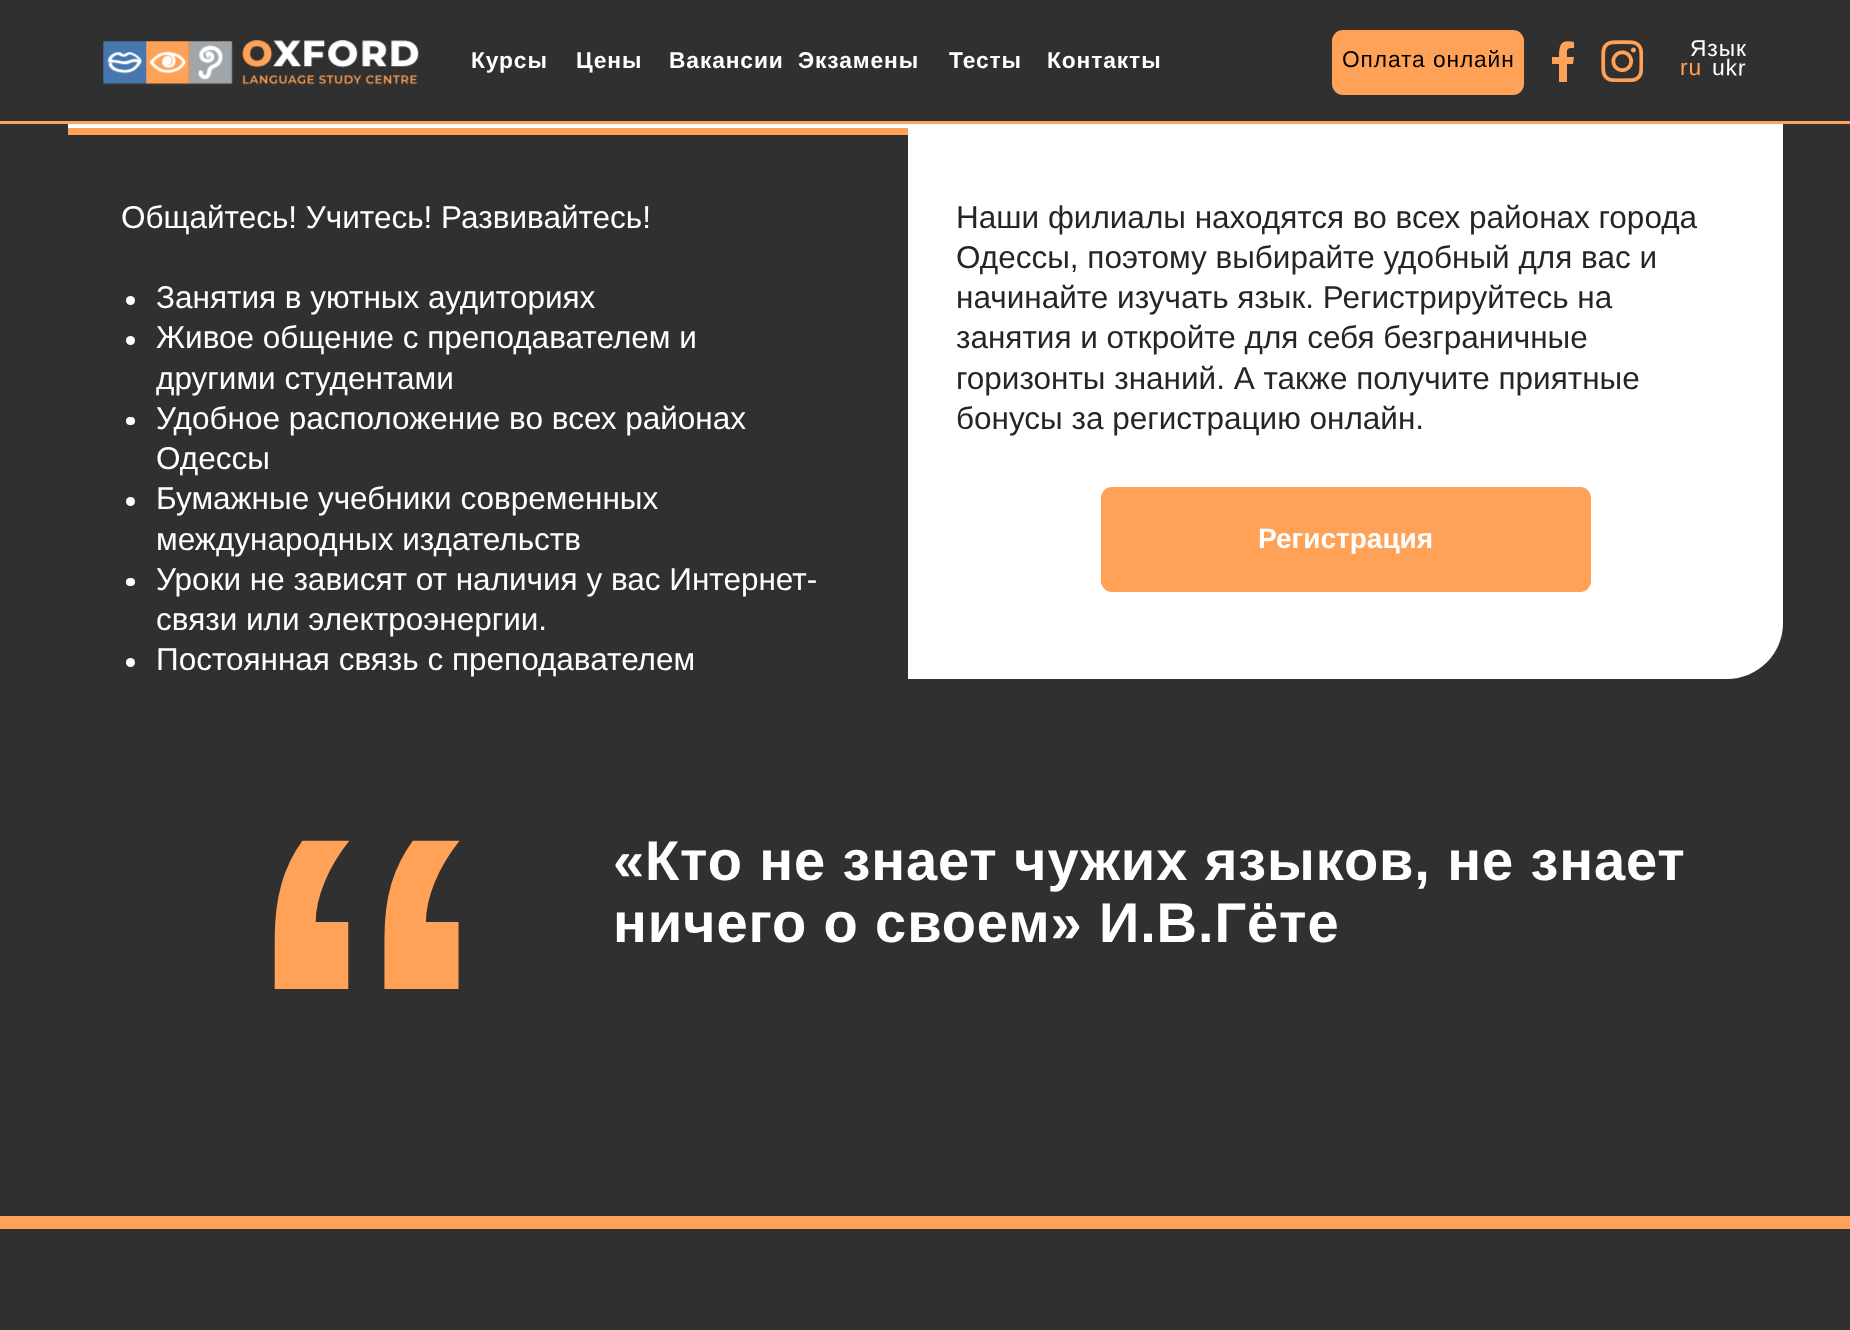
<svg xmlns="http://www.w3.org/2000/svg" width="1850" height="1330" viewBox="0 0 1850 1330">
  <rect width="100%" height="100%" fill="#303030"/>
  <rect x="68" y="-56" width="1715" height="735" rx="56" fill="#fff"/>
  <path d="M68 0h1715v121H68z" fill="#303030"/>
  <image x="103" y="40" width="316" height="45" href="img/1.png"/>
  <rect x="1332" y="30" width="192" height="65" rx="11" fill="#ffa156"/>
  <path d="M1573 64L1574 57H1567C1567 49 1566 48 1574 48V42C1561 39 1559 44 1559 57H1552V64H1559V82H1567V64Z" fill="#ffa156"/>
  <image x="1601" y="40" width="42" height="42" href="img/2.png"/>
  <path d="M0 121h1850v3H0z" fill="#ffa156"/>
  <path d="M68 128h840v551H68z" fill="#303030"/>
  <path d="M68 128h840v7H68z" fill="#ffa156"/>
  <circle cx="130.5" cy="300.5" r="4.5" fill="#fff"/>
  <circle cx="130.5" cy="340.5" r="4.5" fill="#fff"/>
  <rect x="126" y="417" width="9" height="8" rx="4" fill="#fff"/>
  <circle cx="130.5" cy="501.5" r="4.5" fill="#fff"/>
  <rect x="126" y="578" width="9" height="8" rx="4" fill="#fff"/>
  <circle cx="130.5" cy="662.5" r="4.5" fill="#fff"/>
  <rect x="1101" y="487" width="490" height="105" rx="11" fill="#ffa156"/>
  <path d="M0 1216h1850v13H0z" fill="#ffa156"/>
  <text x="1690" y="56" font-family="Liberation Sans" font-size="22.75" letter-spacing="0.9" fill="#fff">Язык</text>
  <g font-family="Liberation Sans" font-size="22.75" font-weight="bold" letter-spacing="0.9" fill="#fff">
    <text x="471" y="68">Курсы</text>
    <text x="576" y="68">Цены</text>
    <text x="669" y="68">Вакансии</text>
    <text x="798" y="68">Экзамены</text>
    <text x="949" y="68">Тесты</text>
    <text x="1047" y="68">Контакты</text>
  </g>
  <text x="1342" y="67" font-family="Liberation Sans" font-size="22.75" letter-spacing="0.9" fill="#000">Оплата онлайн</text>
  <text x="1680" y="75" font-family="Liberation Sans" font-size="22.75" letter-spacing="0.9" fill="#ffa156">ru</text>
  <text x="1712" y="75" transform="rotate(1 1712 75)" font-family="Liberation Sans" font-size="22.75" letter-spacing="0.9" fill="#fff">ukr</text>
  <g font-family="Liberation Sans" font-size="31.5" fill="#fff">
    <text x="121" y="228">Общайтесь! Учитесь! Развивайтесь!</text>
    <text x="156" y="308">Занятия в уютных аудиториях</text>
    <text x="156" y="348">Живое общение с преподавателем и</text>
    <text x="156" y="389">другими студентами</text>
    <text x="156" y="429">Удобное расположение во всех районах</text>
    <text x="156" y="469">Одессы</text>
    <text x="156" y="509">Бумажные учебники современных</text>
    <text x="156" y="550">международных издательств</text>
    <text x="156" y="590">Уроки не зависят от наличия у вас Интернет-</text>
    <text x="156" y="630">связи или электроэнергии.</text>
    <text x="156" y="670">Постоянная связь с преподавателем</text>
  </g>
  <g font-family="Liberation Sans" font-size="31.5" fill="#252525">
    <text x="956" y="228">Наши филиалы находятся во всех районах города</text>
    <text x="956" y="268">Одессы, поэтому выбирайте удобный для вас и</text>
    <text x="956" y="308">начинайте изучать язык. Регистрируйтесь на</text>
    <text x="956" y="348">занятия и откройте для себя безграничные</text>
    <text x="956" y="389">горизонты знаний. А также получите приятные</text>
    <text x="956" y="429">бонусы за регистрацию онлайн.</text>
  </g>
  <text x="1258" y="548" font-family="Liberation Sans" font-size="28" font-weight="bold" fill="#fff">Регистрация</text>
  <text x="236" y="1202" font-family="Liberation Sans" font-size="525" font-weight="bold" fill="#ffa156">“</text>
  <g font-family="Liberation Sans" font-size="56" font-weight="bold" letter-spacing="0.9" fill="#fff">
    <text x="613" y="880">«Кто не знает чужих языков, не знает</text>
    <text x="613" y="942">ничего о своем» И.В.Гёте</text>
  </g>
</svg>
